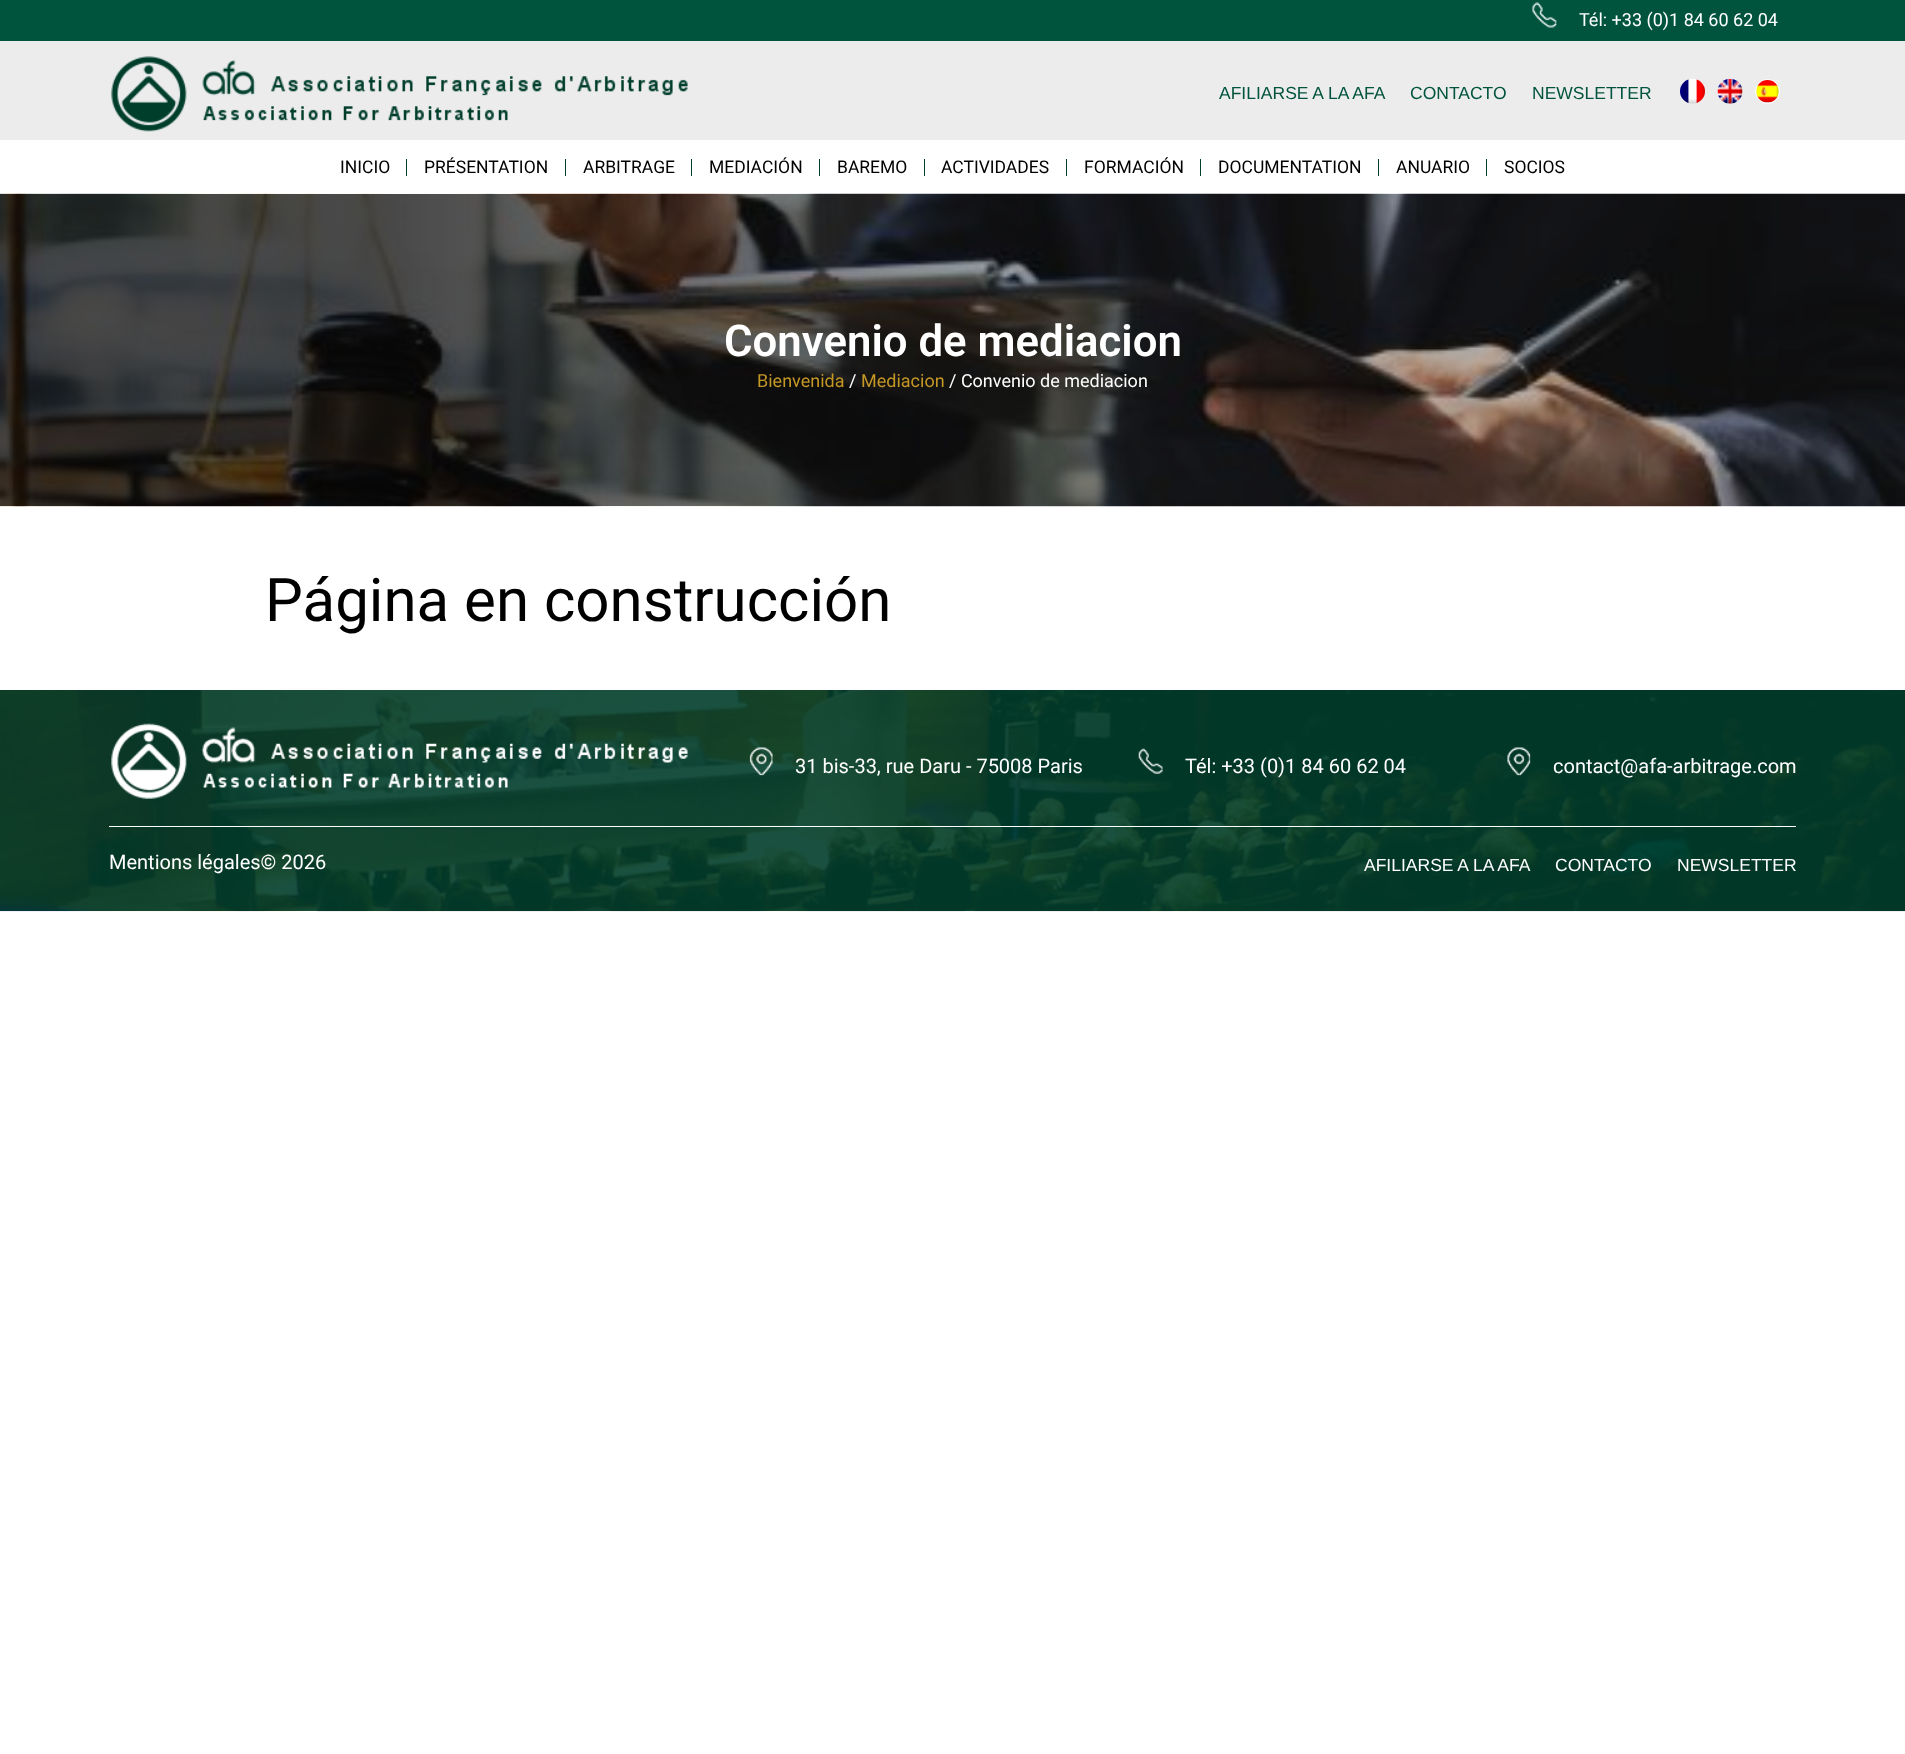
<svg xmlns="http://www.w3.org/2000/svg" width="1905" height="1754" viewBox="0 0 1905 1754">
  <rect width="100%" height="100%" fill="#fff"/>
  <path d="M0 0h1905v41H0z" fill="#00543d"/>
  <image x="1532" y="2" width="25" height="26" href="img/1.png"/>
  <path d="M0 41h1905v99H0z" fill="#ececec"/>
  <image x="111" y="56" width="577" height="76" href="img/2.png"/>
  <image x="1680" y="79" width="25" height="25" href="img/3.png"/>
  <image x="1717" y="78" width="26" height="26" href="img/4.png"/>
  <circle cx="1767.5" cy="91.5" r="12" fill="none" stroke="#fff"/>
  <image x="1756" y="80" width="23" height="23" href="img/5.png"/>
  <path d="M406 159h1v17H406z" fill="#003e2c"/>
  <path d="M565 159h1v17H565z" fill="#003e2c"/>
  <path d="M691 159h1v17H691z" fill="#003e2c"/>
  <path d="M819 159h1v17H819z" fill="#003e2c"/>
  <path d="M924 159h1v17H924z" fill="#003e2c"/>
  <path d="M1066 159h1v17H1066z" fill="#003e2c"/>
  <path d="M1200 159h1v17H1200z" fill="#003e2c"/>
  <path d="M1378 159h1v17H1378z" fill="#003e2c"/>
  <path d="M1486 159h1v17H1486z" fill="#003e2c"/>
  <image x="0" y="193" width="1905" height="314" href="img/6.png"/>
  <image x="0" y="690" width="1905" height="222" href="img/7.png"/>
  <image x="111" y="723" width="577" height="76" href="img/8.png"/>
  <image x="749" y="747" width="24" height="29" href="img/9.png"/>
  <image x="1138" y="748" width="25" height="26" href="img/10.png"/>
  <image x="1507" y="747" width="24" height="29" href="img/11.png"/>
  <path d="M109 826h1687v1H109z" fill="#fff"/>
  <text x="1579" y="26" font-family="Roboto" font-size="18" fill="#fff">Tél: +33 (0)1 84 60 62 04</text>
  <g font-family="Liberation Sans" font-size="17.5" fill="#00543d">
    <text x="1219" y="99">AFILIARSE A LA AFA</text>
    <text x="1410" y="99">CONTACTO</text>
    <text x="1532" y="99">NEWSLETTER</text>
  </g>
  <g font-family="Roboto" font-size="17.5" fill="#000">
    <text x="340" y="173">INICIO</text>
    <text x="424" y="173">PRÉSENTATION</text>
    <text x="583" y="173">ARBITRAGE</text>
    <text x="709" y="173">MEDIACIÓN</text>
    <text x="837" y="173">BAREMO</text>
    <text x="941" y="173">ACTIVIDADES</text>
    <text x="1084" y="173">FORMACIÓN</text>
    <text x="1218" y="173">DOCUMENTATION</text>
    <text x="1396" y="173">ANUARIO</text>
    <text x="1504" y="173">SOCIOS</text>
  </g>
  <text x="724" y="356" font-family="Roboto" font-size="43.75" font-weight="600" fill="#fff">Convenio de mediacion</text>
  <text x="757" y="387" font-family="Roboto" font-size="18" fill="#c59725">Bienvenida</text>
  <text x="849" y="387" font-family="Roboto" font-size="18" fill="#fff">/</text>
  <text x="861" y="387" font-family="Roboto" font-size="18" fill="#c59725">Mediacion</text>
  <text x="949" y="387" font-family="Roboto" font-size="18" fill="#fff">/ Convenio de mediacion</text>
  <text x="265" y="621" font-family="Roboto" font-size="60" fill="#000">Página en construcción</text>
  <g font-family="Roboto" font-size="20" fill="#fff">
    <text x="795" y="773">31 bis-33, rue Daru - 75008 Paris</text>
    <text x="1185" y="773">Tél: +33 (0)1 84 60 62 04</text>
    <text x="1553" y="773">contact@afa-arbitrage.com</text>
    <text x="109" y="869">Mentions légales© 2026</text>
  </g>
  <g font-family="Liberation Sans" font-size="17.5" fill="#fff">
    <text x="1364" y="871">AFILIARSE A LA AFA</text>
    <text x="1555" y="871">CONTACTO</text>
    <text x="1677" y="871">NEWSLETTER</text>
  </g>
</svg>
